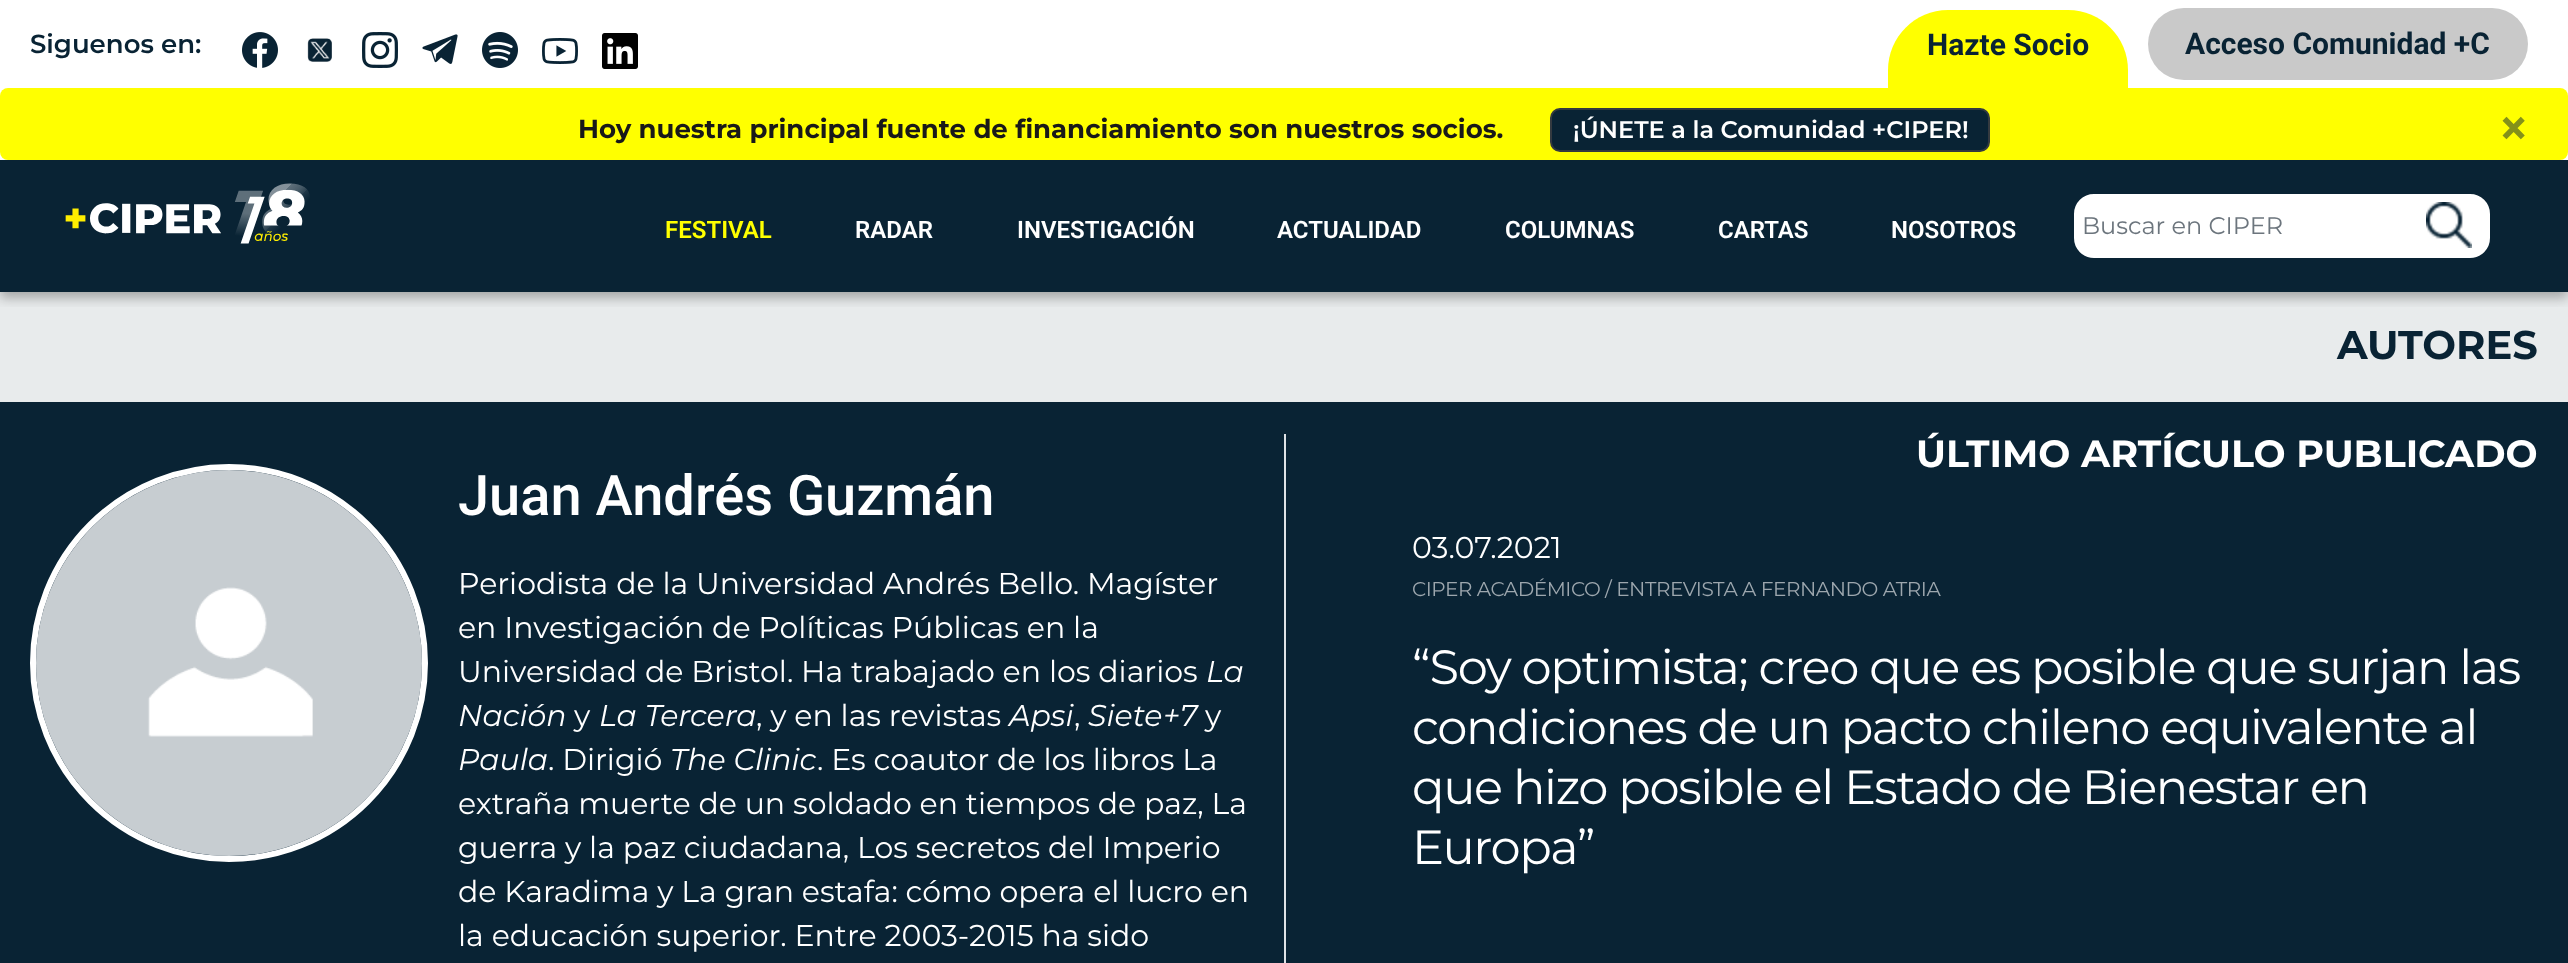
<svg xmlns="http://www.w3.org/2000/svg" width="2568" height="963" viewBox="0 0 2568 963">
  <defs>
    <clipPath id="clip1"><path d="M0 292h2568v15H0z"/></clipPath>
  </defs>
  <rect width="100%" height="100%" fill="#fff"/>
  <path d="M0 292h2568v110H0z" fill="#e8ebec"/>
  <g clip-path="url(#clip1)">
    <path d="M0 6h2568v292H0z" fill="#0000004a" filter="blur(6px)"/>
  </g>
  <image x="242" y="32" width="36" height="36" href="img/1.png"/>
  <image x="307" y="38" width="25" height="24" href="img/2.png"/>
  <image x="362" y="32" width="36" height="36" href="img/3.png"/>
  <image x="422" y="34" width="36" height="30" href="img/4.png"/>
  <image x="482" y="32" width="36" height="36" href="img/5.png"/>
  <image x="542" y="38" width="36" height="26" href="img/6.png"/>
  <image x="602" y="33" width="36" height="36" href="img/7.png"/>
  <path d="M1948 10H2068C2101 10 2128 37 2128 70V90H1888V70C1888 37 1915 10 1948 10Z" fill="#ff0"/>
  <rect x="2148" y="8" width="380" height="72" rx="36" fill="#c9c9c9"/>
  <rect y="88" width="2568" height="72" rx="8" fill="#ff0"/>
  <rect x="1551" y="109" width="438" height="42" rx="9" fill="#092334" stroke="#343a40" stroke-width="2"/>
  <path d="M0 160h2568v132H0z" fill="#092334"/>
  <image x="65" y="183" width="245" height="61" href="img/8.png"/>
  <rect x="2075" y="195" width="414" height="62" rx="19" fill="#fff" stroke="#fff" stroke-width="2"/>
  <image x="2426" y="202" width="46" height="46" href="img/9.png"/>
  <path d="M0 402h2568v561H0z" fill="#092334"/>
  <circle cx="229" cy="663" r="196" fill="none" stroke="#fff" stroke-width="6"/>
  <image x="36" y="470" width="386" height="386" href="img/10.png"/>
  <path d="M1284 434h2v529H1284z" fill="#dee2e6"/>
  <text x="30" y="53" font-family="Montserrat" font-size="26" font-weight="600" fill="#092334">Siguenos en:</text>
  <g font-family="Roboto" font-size="30" font-weight="bold" fill="#092334">
    <text x="1927" y="55">Hazte Socio</text>
    <text x="2185" y="54">Acceso Comunidad +C</text>
  </g>
  <text x="578" y="138" font-family="Montserrat" font-size="26" font-weight="bold" fill="#191919">Hoy nuestra principal fuente de financiamiento son nuestros socios.</text>
  <text x="1573" y="138" font-family="Montserrat" font-size="24" font-weight="600" fill="#fff">¡ÚNETE a la Comunidad +CIPER!</text>
  <text x="2501" y="144" font-family="Roboto" font-size="48" font-weight="bold" fill="#84911a">×</text>
  <text x="665" y="238" font-family="Roboto" font-size="24" font-weight="600" fill="#ff0">FESTIVAL</text>
  <g font-family="Roboto" font-size="24" font-weight="600" fill="#fff">
    <text x="855" y="238">RADAR</text>
    <text x="1017" y="238">INVESTIGACIÓN</text>
    <text x="1277" y="238">ACTUALIDAD</text>
    <text x="1505" y="238">COLUMNAS</text>
    <text x="1718" y="238">CARTAS</text>
    <text x="1891" y="238">NOSOTROS</text>
  </g>
  <text x="2082" y="234" font-family="Montserrat" font-size="24" fill="#6c757d">Buscar en CIPER</text>
  <text x="2337" y="359" font-family="Montserrat" font-size="40" font-weight="bold" fill="#092334">AUTORES</text>
  <text x="458" y="515" font-family="Roboto" font-size="56" font-weight="500" fill="#fff">Juan Andrés Guzmán</text>
  <g font-family="Montserrat" font-size="30" fill="#fff">
    <text x="458" y="594">Periodista de la Universidad Andrés Bello. Magíster</text>
    <text x="458" y="638">en Investigación de Políticas Públicas en la</text>
    <text x="458" y="682">Universidad de Bristol. Ha trabajado en los diarios</text>
  </g>
  <g font-family="Montserrat" font-size="30" font-style="italic" fill="#fff">
    <text x="1206" y="682">La</text>
    <text x="458" y="726">Nación</text>
  </g>
  <text x="574" y="726" font-family="Montserrat" font-size="30" fill="#fff">y</text>
  <text x="599" y="726" font-family="Montserrat" font-size="30" font-style="italic" fill="#fff">La Tercera</text>
  <text x="756" y="726" font-family="Montserrat" font-size="30" fill="#fff">, y en las revistas</text>
  <text x="1009" y="726" font-family="Montserrat" font-size="30" font-style="italic" fill="#fff">Apsi</text>
  <text x="1074" y="726" font-family="Montserrat" font-size="30" fill="#fff">,</text>
  <text x="1088" y="726" font-family="Montserrat" font-size="30" font-style="italic" fill="#fff">Siete+7</text>
  <text x="1205" y="726" font-family="Montserrat" font-size="30" fill="#fff">y</text>
  <text x="458" y="770" font-family="Montserrat" font-size="30" font-style="italic" fill="#fff">Paula</text>
  <text x="548" y="770" font-family="Montserrat" font-size="30" fill="#fff">. Dirigió</text>
  <text x="670" y="770" font-family="Montserrat" font-size="30" font-style="italic" fill="#fff">The Clinic</text>
  <g font-family="Montserrat" font-size="30" fill="#fff">
    <text x="817" y="770">. Es coautor de los libros La</text>
    <text x="458" y="814">extraña muerte de un soldado en tiempos de paz, La</text>
    <text x="458" y="858">guerra y la paz ciudadana, Los secretos del Imperio</text>
    <text x="458" y="902">de Karadima y La gran estafa: cómo opera el lucro en</text>
    <text x="458" y="946">la educación superior. Entre 2003-2015 ha sido</text>
  </g>
  <text x="1916" y="467" font-family="Montserrat" font-size="38" font-weight="bold" fill="#fff">ÚLTIMO ARTÍCULO PUBLICADO</text>
  <text x="1412" y="558" font-family="Montserrat" font-size="30" fill="#fff">03.07.2021</text>
  <text x="1412" y="596" font-family="Montserrat" font-size="20" letter-spacing="-0.45" fill="#9da7ae">CIPER ACADÉMICO / ENTREVISTA A FERNANDO ATRIA</text>
  <g font-family="Montserrat" font-size="48" letter-spacing="-1.35" fill="#fff">
    <text x="1412" y="684">“Soy optimista; creo que es posible que surjan las</text>
    <text x="1412" y="744">condiciones de un pacto chileno equivalente al</text>
    <text x="1412" y="804">que hizo posible el Estado de Bienestar en</text>
    <text x="1412" y="864">Europa”</text>
  </g>
</svg>
